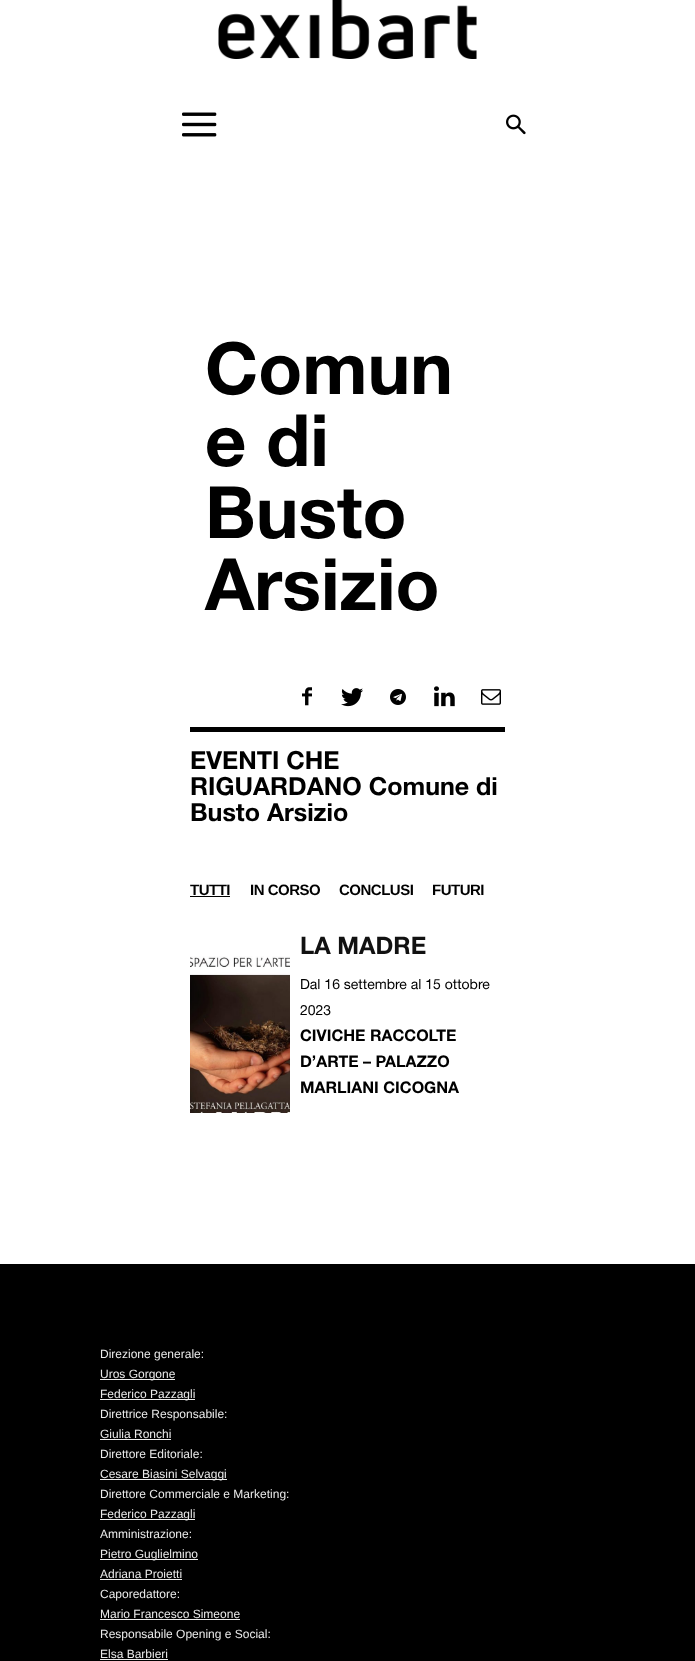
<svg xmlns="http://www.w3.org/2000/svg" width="695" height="1661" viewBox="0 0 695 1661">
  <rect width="100%" height="100%" fill="#fff"/>
  <image x="218" y="0" width="259" height="59" href="img/1.png"/>
  <image x="182" y="112" width="35" height="25" href="img/2.png"/>
  <image x="506" y="114" width="20" height="21" href="img/3.png"/>
  <image x="302" y="687" width="10" height="19" href="img/4.png"/>
  <image x="341" y="688" width="22" height="19" href="img/5.png"/>
  <image x="390" y="689" width="16" height="16" href="img/6.png"/>
  <image x="434" y="686" width="21" height="21" href="img/7.png"/>
  <image x="481" y="689" width="20" height="16" href="img/8.png"/>
  <path d="M190 727h315v5H190z" fill="#000"/>
  <path d="M190 896h40v1H190z" fill="#000"/>
  <image x="190" y="956" width="100" height="157" href="img/9.png"/>
  <path d="M0 1264h695v397H0z" fill="#000"/>
  <path d="M100 1379h75v1H100z" fill="#eee"/>
  <path d="M100 1399h95v1H100z" fill="#eee"/>
  <path d="M100 1439h71v1H100z" fill="#eee"/>
  <path d="M100 1479h127v1H100z" fill="#eee"/>
  <path d="M100 1519h95v1H100z" fill="#eee"/>
  <path d="M100 1559h98v1H100z" fill="#eee"/>
  <path d="M100 1579h82v1H100z" fill="#eee"/>
  <path d="M100 1619h140v1H100z" fill="#eee"/>
  <path d="M100 1659h68v1H100z" fill="#eee"/>
  <g font-family="'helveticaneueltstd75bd'" font-size="72" font-weight="bold" fill="#000">
    <text x="205" y="394">Comun</text>
    <text x="205" y="466">e di</text>
    <text x="205" y="538">Busto</text>
    <text x="205" y="610">Arsizio</text>
  </g>
  <g font-family="'helveticaneueltstd75bd'" font-size="25" font-weight="bold" fill="#000">
    <text x="190" y="769">EVENTI CHE</text>
    <text x="190" y="795">RIGUARDANO Comune di</text>
    <text x="190" y="821">Busto Arsizio</text>
  </g>
  <g font-family="Liberation Sans" font-size="15" font-weight="bold" letter-spacing="-0.5" fill="#000">
    <text x="190" y="895">TUTTI</text>
    <text x="250" y="895">IN CORSO</text>
    <text x="339" y="895">CONCLUSI</text>
    <text x="432" y="895">FUTURI</text>
  </g>
  <text x="300" y="954" font-family="'helveticaneueltstd75bd'" font-size="24" font-weight="bold" fill="#111">LA MADRE</text>
  <g font-family="'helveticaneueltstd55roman'" font-size="14" fill="#000">
    <text x="300" y="989">Dal 16 settembre al 15 ottobre</text>
    <text x="300" y="1015">2023</text>
  </g>
  <g font-family="'helveticaneueltstd75bd'" font-size="16" font-weight="bold" fill="#000">
    <text x="300" y="1041">CIVICHE RACCOLTE</text>
    <text x="300" y="1067">D’ARTE – PALAZZO</text>
    <text x="300" y="1093">MARLIANI CICOGNA</text>
  </g>
  <g font-family="Liberation Sans" font-size="12" fill="#eaeaea">
    <text x="100" y="1358">Direzione generale:</text>
    <text x="100" y="1378">Uros Gorgone</text>
    <text x="100" y="1398">Federico Pazzagli</text>
    <text x="100" y="1418">Direttrice Responsabile:</text>
    <text x="100" y="1438">Giulia Ronchi</text>
    <text x="100" y="1458">Direttore Editoriale:</text>
    <text x="100" y="1478">Cesare Biasini Selvaggi</text>
    <text x="100" y="1498">Direttore Commerciale e Marketing:</text>
    <text x="100" y="1518">Federico Pazzagli</text>
    <text x="100" y="1538">Amministrazione:</text>
    <text x="100" y="1558">Pietro Guglielmino</text>
    <text x="100" y="1578">Adriana Proietti</text>
    <text x="100" y="1598">Caporedattore:</text>
    <text x="100" y="1618">Mario Francesco Simeone</text>
    <text x="100" y="1638">Responsabile Opening e Social:</text>
    <text x="100" y="1658">Elsa Barbieri</text>
  </g>
</svg>
